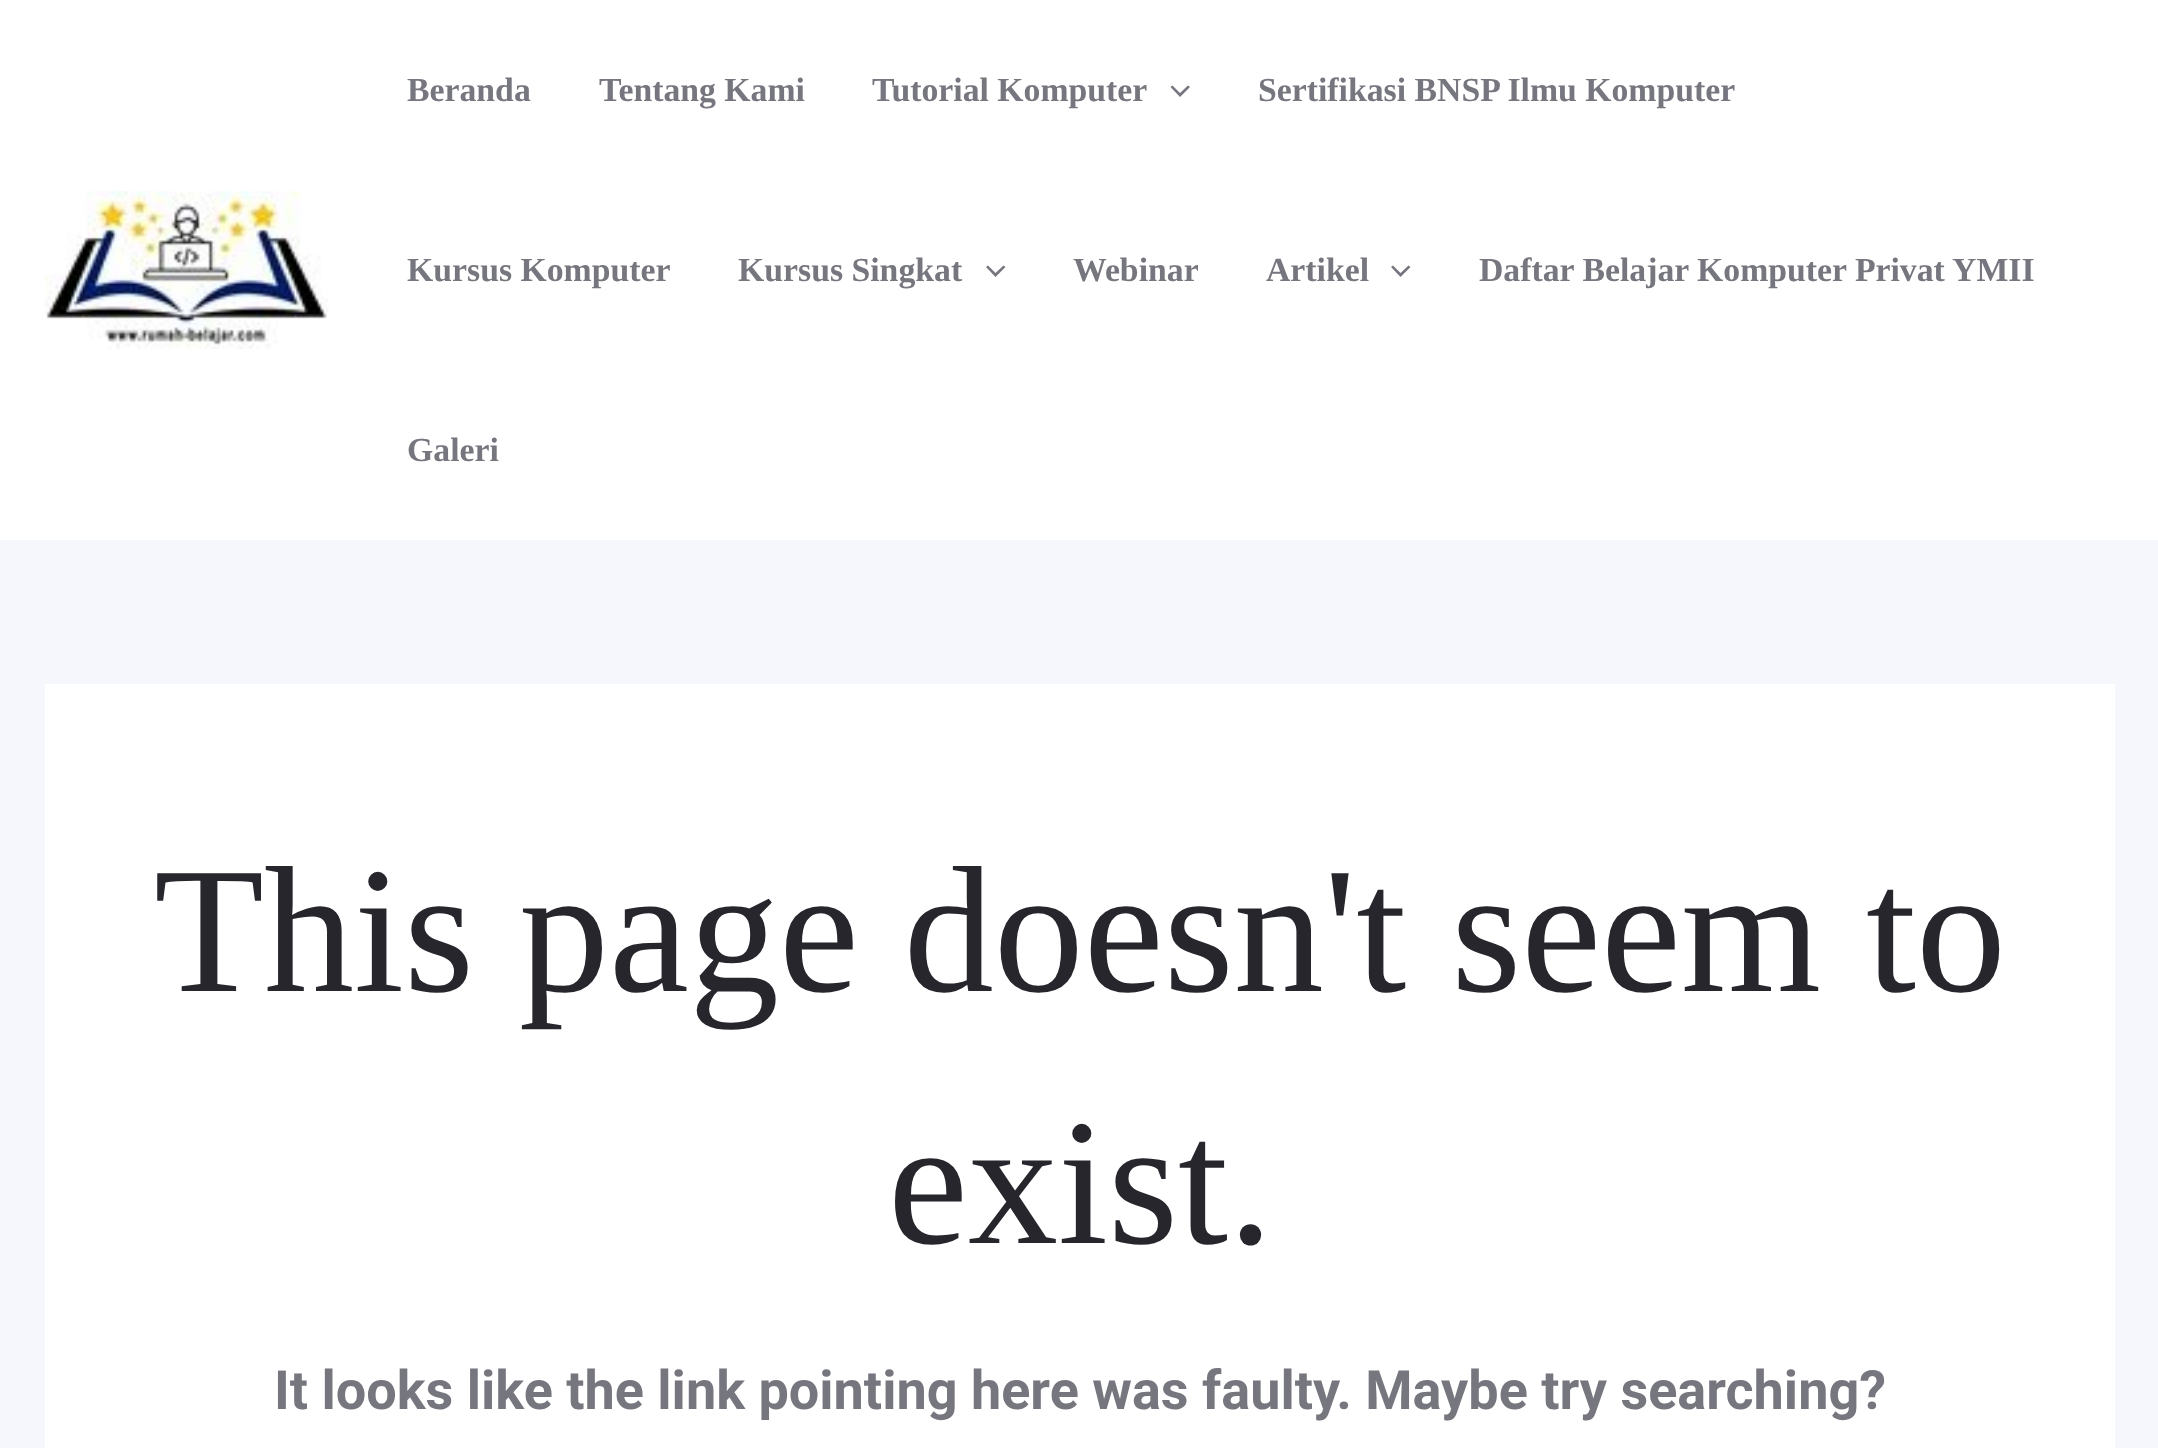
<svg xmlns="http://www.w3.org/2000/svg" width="2158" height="1448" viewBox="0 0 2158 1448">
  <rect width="100%" height="100%" fill="#f6f7fd"/>
  <path d="M0 0h2158v540H0z" fill="#fff"/>
  <image x="45" y="191" width="284" height="158" href="img/1.png"/>
  <path d="M1170.5 87L1180 97L1190 87L1188 85.5L1180 93L1172.5 85.5Z" fill="#76767f"/>
  <path d="M986 267L995.5 277L1005.5 267L1003.5 265.5L995.5 273L988 265.5Z" fill="#76767f"/>
  <path d="M1391 267L1400.5 277L1410.5 267L1408.5 265.5L1400.5 273L1393 265.5Z" fill="#76767f"/>
  <path d="M45 684h2070v764H45z" fill="#fff"/>
  <g font-family="Liberation Serif" font-size="33.75" font-weight="bold" fill="#76767f">
    <text x="407" y="101">Beranda</text>
    <text x="599" y="101">Tentang Kami</text>
    <text x="872" y="101">Tutorial Komputer</text>
    <text x="1258" y="101">Sertifikasi BNSP Ilmu Komputer</text>
    <text x="407" y="281">Kursus Komputer</text>
    <text x="738" y="281">Kursus Singkat</text>
    <text x="1073" y="281">Webinar</text>
    <text x="1266" y="281">Artikel</text>
    <text x="1479" y="281">Daftar Belajar Komputer Privat YMII</text>
    <text x="407" y="461">Galeri</text>
  </g>
  <g font-family="Liberation Serif" font-size="180" fill="#26262c">
    <text x="154" y="991">This page doesn't seem to</text>
    <text x="888" y="1243">exist.</text>
  </g>
  <text x="274" y="1409" font-family="Roboto" font-size="54" font-weight="bold" fill="#76767f">It looks like the link pointing here was faulty. Maybe try searching?</text>
</svg>
